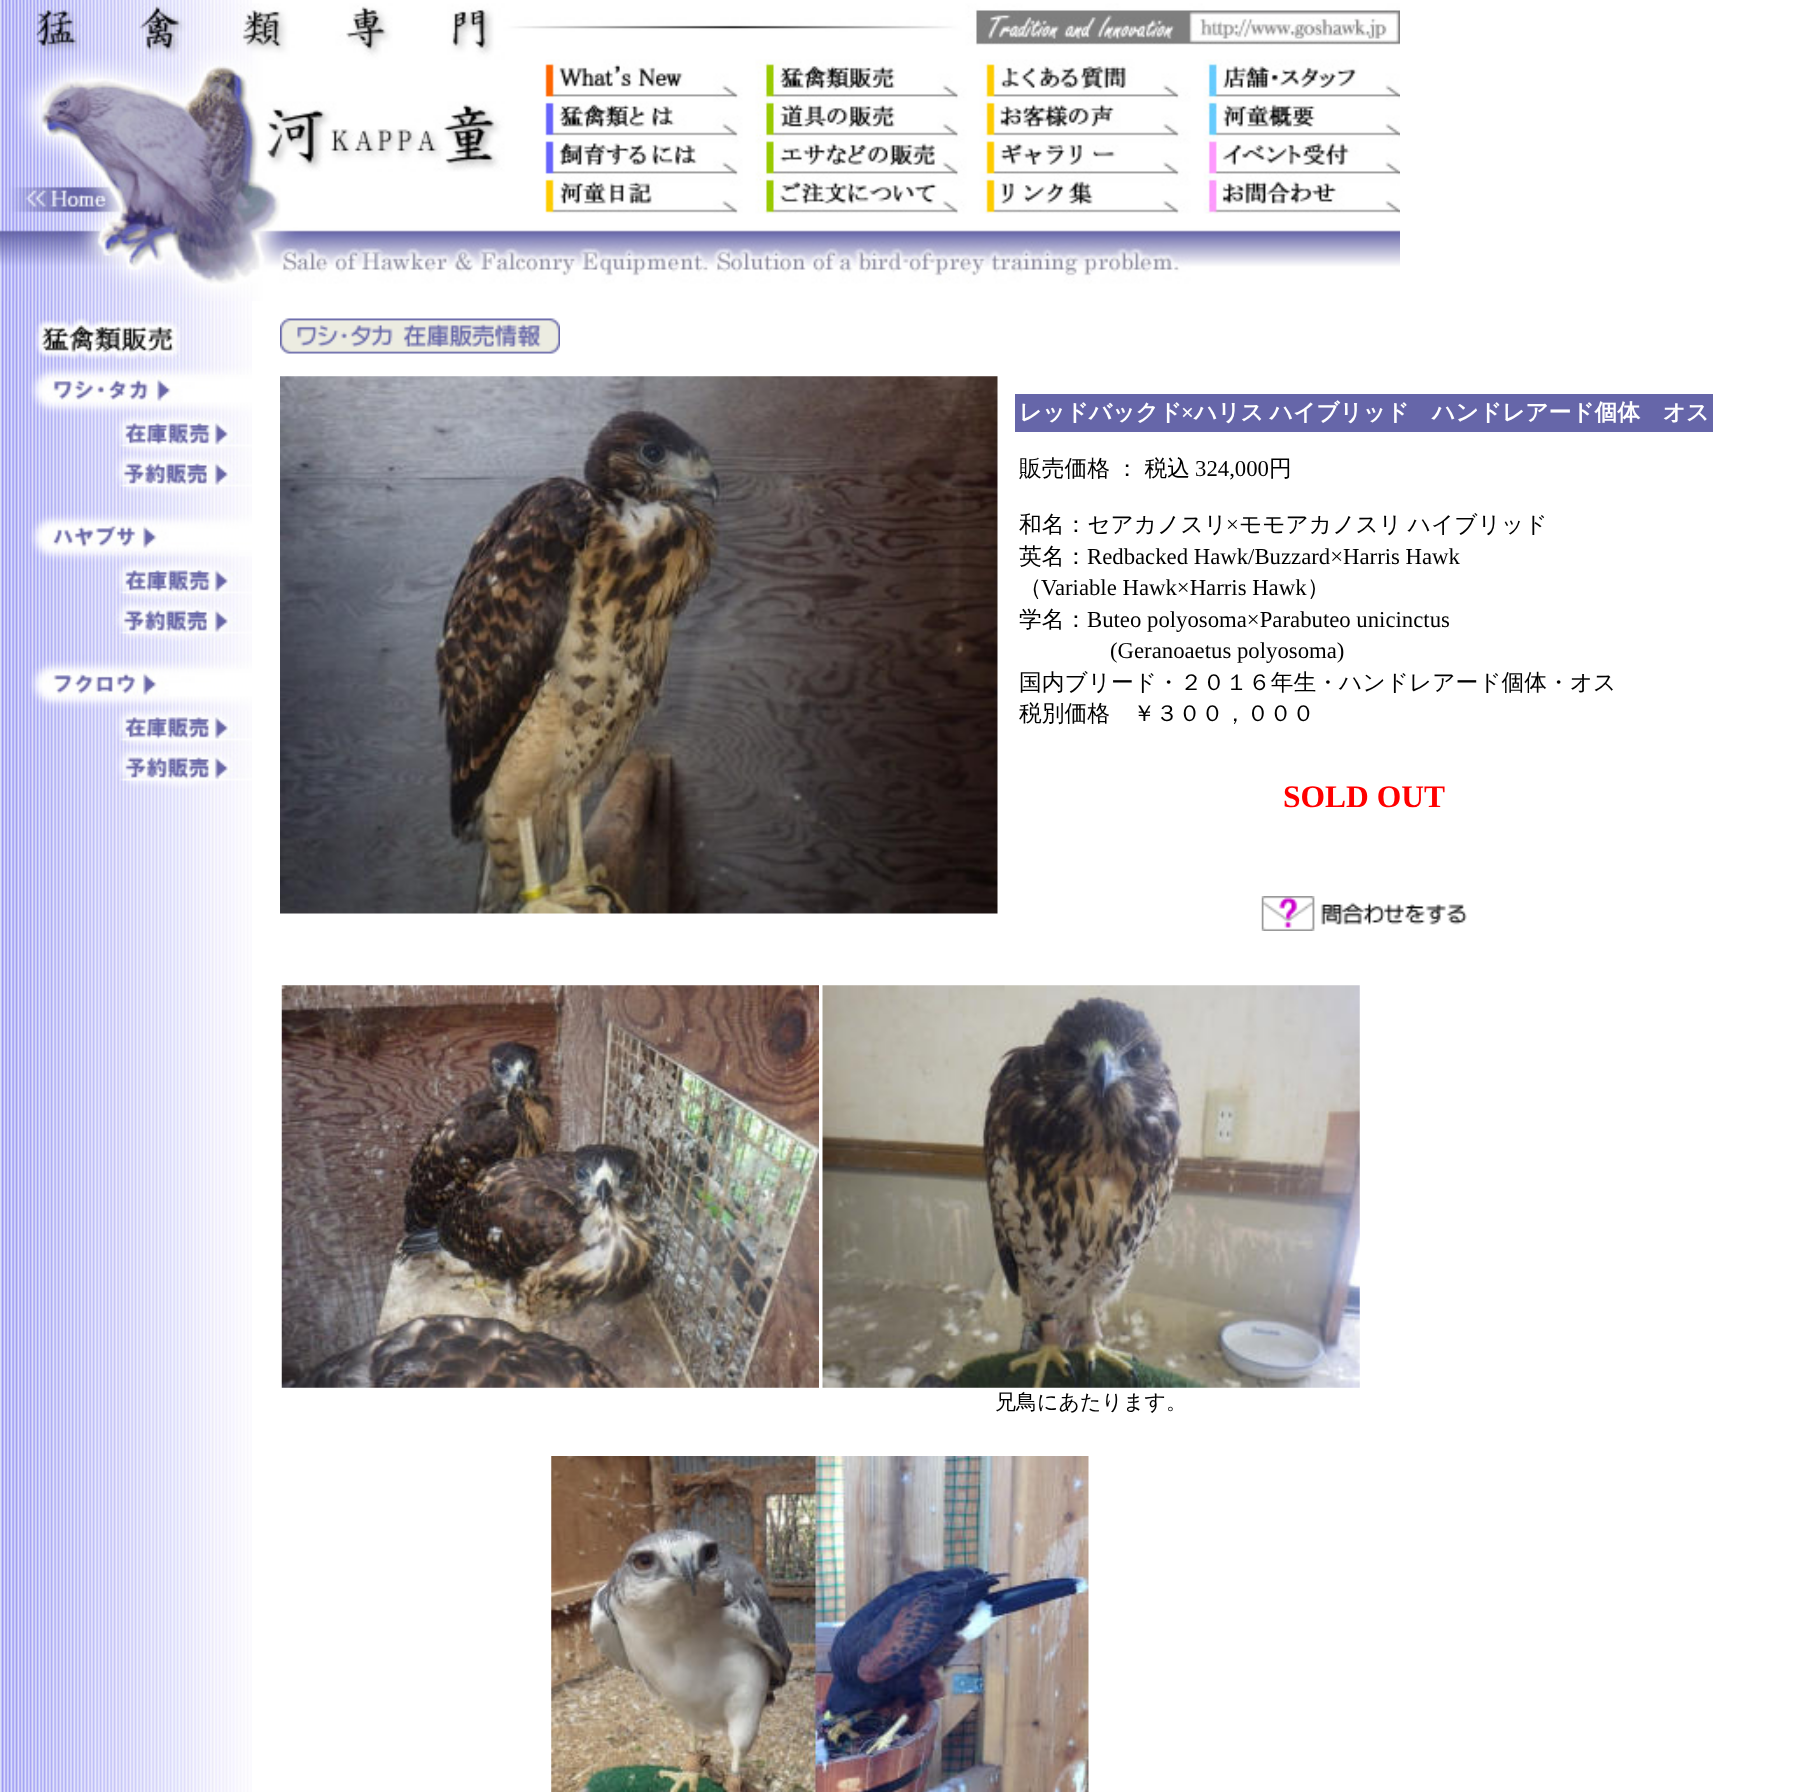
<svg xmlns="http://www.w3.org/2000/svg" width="1794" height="1792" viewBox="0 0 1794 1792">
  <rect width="100%" height="100%" fill="#fff"/>
  <image x="0" y="0" width="252" height="1792" href="img/1.png"/>
  <image x="0" y="3" width="1400" height="298" href="img/2.png"/>
  <image x="28" y="318" width="224" height="471" href="img/3.png"/>
  <image x="280" y="318" width="280" height="36" href="img/4.png"/>
  <image x="280" y="376" width="718" height="538" href="img/5.png"/>
  <path d="M1015 394h698v38H1015z" fill="#6666a9"/>
  <image x="1261" y="896" width="206" height="35" href="img/6.png"/>
  <image x="281" y="985" width="538" height="403" href="img/7.png"/>
  <image x="822" y="985" width="538" height="403" href="img/8.png"/>
  <image x="551" y="1456" width="538" height="336" href="img/9.png"/>
  <text x="1019" y="420" font-family="WenQuanYi Zen Hei" font-size="22.75" font-weight="bold" fill="#fff">レッドバックド</text>
  <text x="1181" y="420" font-family="Liberation Serif" font-size="22.75" font-weight="bold" fill="#fff">×</text>
  <text x="1194" y="420" word-spacing="-1" font-family="WenQuanYi Zen Hei" font-size="22.75" font-weight="bold" fill="#fff">ハリス ハイブリッド　ハンドレアード個体　オス</text>
  <text x="1019" y="476" word-spacing="-1" font-family="WenQuanYi Zen Hei" font-size="22.75" font-weight="500" fill="#000">販売価格 ： 税込</text>
  <text x="1195" y="476" font-family="Liberation Serif" font-size="22.75" fill="#000">324,000</text>
  <g font-family="WenQuanYi Zen Hei" font-size="22.75" font-weight="500" fill="#000">
    <text x="1269" y="476">円</text>
    <text x="1019" y="532">和名：セアカノスリ</text>
  </g>
  <text x="1226" y="532" font-family="Liberation Serif" font-size="22.75" fill="#000">×</text>
  <g font-family="WenQuanYi Zen Hei" font-size="22.75" font-weight="500" fill="#000">
    <text x="1239" y="532" word-spacing="-1">モモアカノスリ ハイブリッド</text>
    <text x="1019" y="564">英名：</text>
  </g>
  <text x="1087" y="564" font-family="Liberation Serif" font-size="22.75" fill="#000">Redbacked Hawk/Buzzard×Harris Hawk</text>
  <text x="1019" y="595" font-family="WenQuanYi Zen Hei" font-size="22.75" font-weight="500" fill="#000">（</text>
  <text x="1041" y="595" font-family="Liberation Serif" font-size="22.75" fill="#000">Variable Hawk×Harris Hawk</text>
  <g font-family="WenQuanYi Zen Hei" font-size="22.75" font-weight="500" fill="#000">
    <text x="1307" y="595">）</text>
    <text x="1019" y="627">学名：</text>
  </g>
  <g font-family="Liberation Serif" font-size="22.75" fill="#000">
    <text x="1087" y="627">Buteo polyosoma×Parabuteo unicinctus</text>
    <text x="1110" y="658">(Geranoaetus polyosoma)</text>
  </g>
  <g font-family="WenQuanYi Zen Hei" font-size="22.75" font-weight="500" fill="#000">
    <text x="1019" y="690">国内ブリード・２０１６年生・ハンドレアード個体・オス</text>
    <text x="1019" y="721">税別価格　￥３００，０００</text>
  </g>
  <text x="1283" y="807" font-family="Liberation Serif" font-size="31.5" font-weight="bold" fill="#f00">SOLD OUT</text>
  <text x="995" y="1409" font-family="WenQuanYi Zen Hei" font-size="21" font-weight="500" fill="#000">兄鳥にあたります。</text>
</svg>
